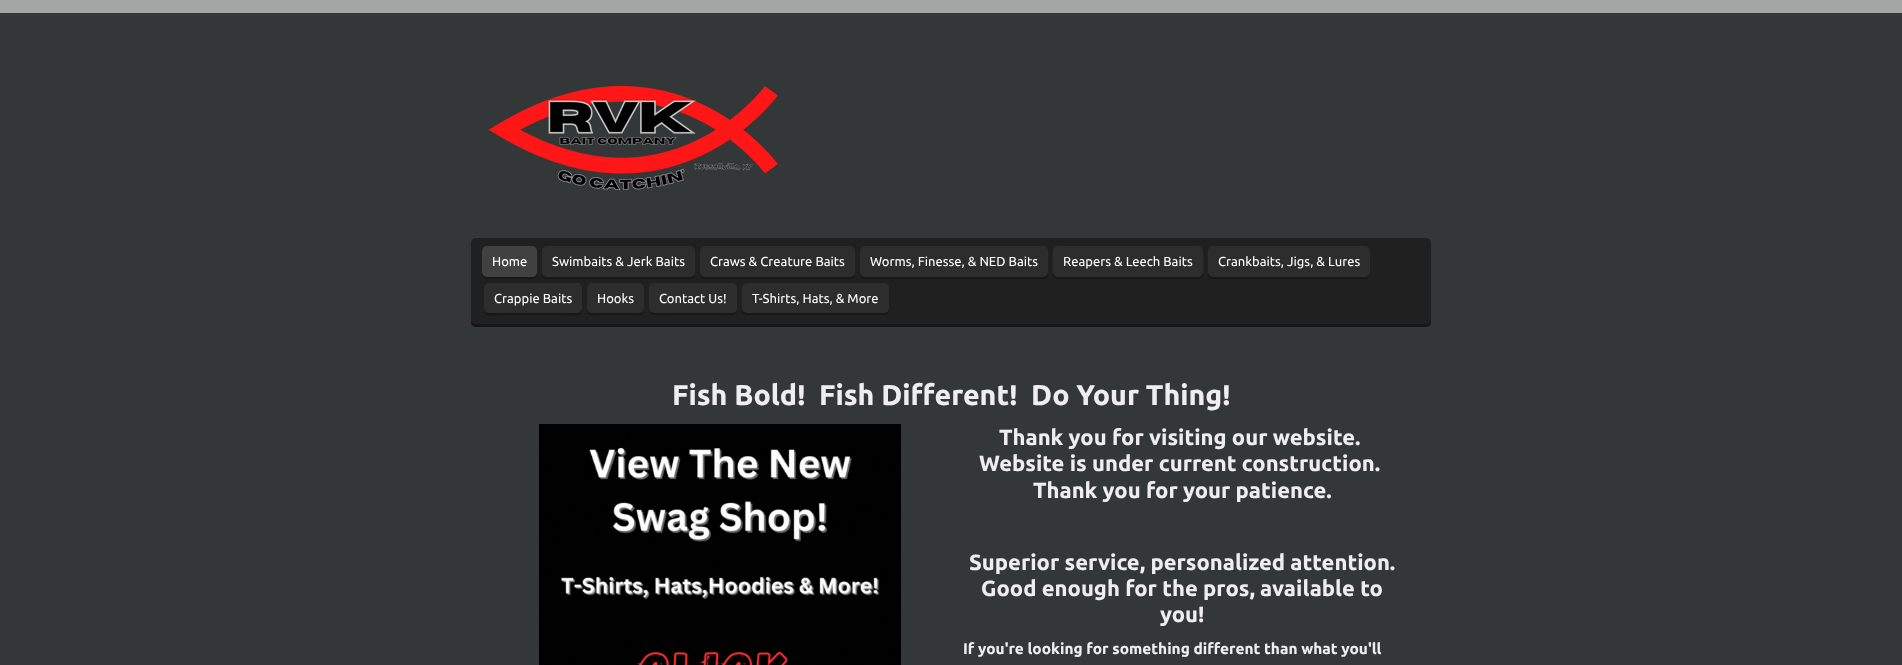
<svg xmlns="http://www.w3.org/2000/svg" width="1902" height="665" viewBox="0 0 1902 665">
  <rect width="100%" height="100%" fill="#343738"/>
  <path d="M0 0h1902v13H0z" fill="#a4a5a5"/>
  <image x="488" y="85" width="290" height="106" href="img/1.png"/>
  <rect x="471" y="238" width="960" height="89" rx="5" fill="#202020"/>
  <path d="M471 319V322C471 325 473 327 476 327H1426C1429 327 1431 325 1431 322V319C1431 322 1429 324 1426 324H476C473 324 471 322 471 319Z" fill="#0000004d"/>
  <path d="M482 272C482 281 487 279 494 279H524C532 279 537 281 537 272C537 275 535 277 532 277H487C484 277 482 275 482 272Z" fill="#181818"/>
  <rect x="482" y="246" width="55" height="31" rx="5" fill="#414141"/>
  <path d="M542 272V274C542 277 544 279 547 279H690C693 279 695 277 695 274V272C695 275 693 277 690 277H547C544 277 542 275 542 272Z" fill="#181818"/>
  <rect x="542" y="246" width="153" height="31" rx="5" fill="#2d2d2d"/>
  <path d="M700 272V274C700 277 702 279 705 279H850C853 279 855 277 855 274V272C855 275 853 277 850 277H705C702 277 700 275 700 272Z" fill="#181818"/>
  <rect x="700" y="246" width="155" height="31" rx="5" fill="#2d2d2d"/>
  <path d="M860 272V274C860 277 862 279 865 279H1043C1046 279 1048 277 1048 274V272C1048 275 1046 277 1043 277H865C862 277 860 275 860 272Z" fill="#181818"/>
  <rect x="860" y="246" width="188" height="31" rx="5" fill="#2d2d2d"/>
  <path d="M1053 272V274C1053 277 1055 279 1058 279H1198C1201 279 1203 277 1203 274V272C1203 275 1201 277 1198 277H1058C1055 277 1053 275 1053 272Z" fill="#181818"/>
  <rect x="1053" y="246" width="150" height="31" rx="5" fill="#2d2d2d"/>
  <path d="M1208 272V274C1208 277 1210 279 1213 279H1365C1368 279 1370 277 1370 274V272C1370 275 1368 277 1365 277H1213C1210 277 1208 275 1208 272Z" fill="#181818"/>
  <rect x="1208" y="246" width="162" height="31" rx="5" fill="#2d2d2d"/>
  <path d="M484 308C484 319 495 315 504 315H562C571 315 582 319 582 308C582 311 580 313 577 313H489C486 313 484 311 484 308Z" fill="#181818"/>
  <rect x="484" y="283" width="98" height="30" rx="5" fill="#2d2d2d"/>
  <path d="M587 308C587 317 592 315 600 315H631C639 315 644 317 644 308C644 311 642 313 639 313H592C589 313 587 311 587 308Z" fill="#181818"/>
  <rect x="587" y="283" width="57" height="30" rx="5" fill="#2d2d2d"/>
  <path d="M649 308C649 318 659 315 667 315H719C727 315 737 318 737 308C737 311 735 313 732 313H654C651 313 649 311 649 308Z" fill="#181818"/>
  <rect x="649" y="283" width="88" height="30" rx="5" fill="#2d2d2d"/>
  <path d="M742 308V310C742 313 744 315 747 315H884C887 315 889 313 889 310V308C889 311 887 313 884 313H747C744 313 742 311 742 308Z" fill="#181818"/>
  <rect x="742" y="283" width="147" height="30" rx="5" fill="#2d2d2d"/>
  <image x="539" y="424" width="362" height="241" href="img/2.png"/>
  <g font-family="Ubuntu" font-size="13" fill="#fff">
    <text x="492" y="266">Home</text>
    <text x="552" y="266">Swimbaits &amp; Jerk Baits</text>
    <text x="710" y="266">Craws &amp; Creature Baits</text>
    <text x="870" y="266">Worms, Finesse, &amp; NED Baits</text>
    <text x="1063" y="266">Reapers &amp; Leech Baits</text>
    <text x="1218" y="266">Crankbaits, Jigs, &amp; Lures</text>
    <text x="494" y="303">Crappie Baits</text>
    <text x="597" y="303">Hooks</text>
    <text x="659" y="303">Contact Us!</text>
    <text x="752" y="303">T-Shirts, Hats, &amp; More</text>
  </g>
  <text x="672" y="405" font-family="Ubuntu" font-size="28.6" font-weight="bold" fill="#eee" xml:space="preserve">Fish Bold!  Fish Different!  Do Your Thing!</text>
  <g font-family="Ubuntu" font-size="22" font-weight="bold" fill="#eee">
    <text x="999" y="445">Thank you for visiting our website.</text>
    <text x="979" y="471">Website is under current construction.</text>
    <text x="1033" y="498">Thank you for your patience.</text>
    <text x="969" y="570">Superior service, personalized attention.</text>
    <text x="981" y="596">Good enough for the pros, available to</text>
    <text x="1160" y="622">you!</text>
  </g>
  <text x="963" y="654" font-family="Ubuntu" font-size="15.4" font-weight="bold" fill="#eee">If you're looking for something different than what you'll</text>
</svg>
